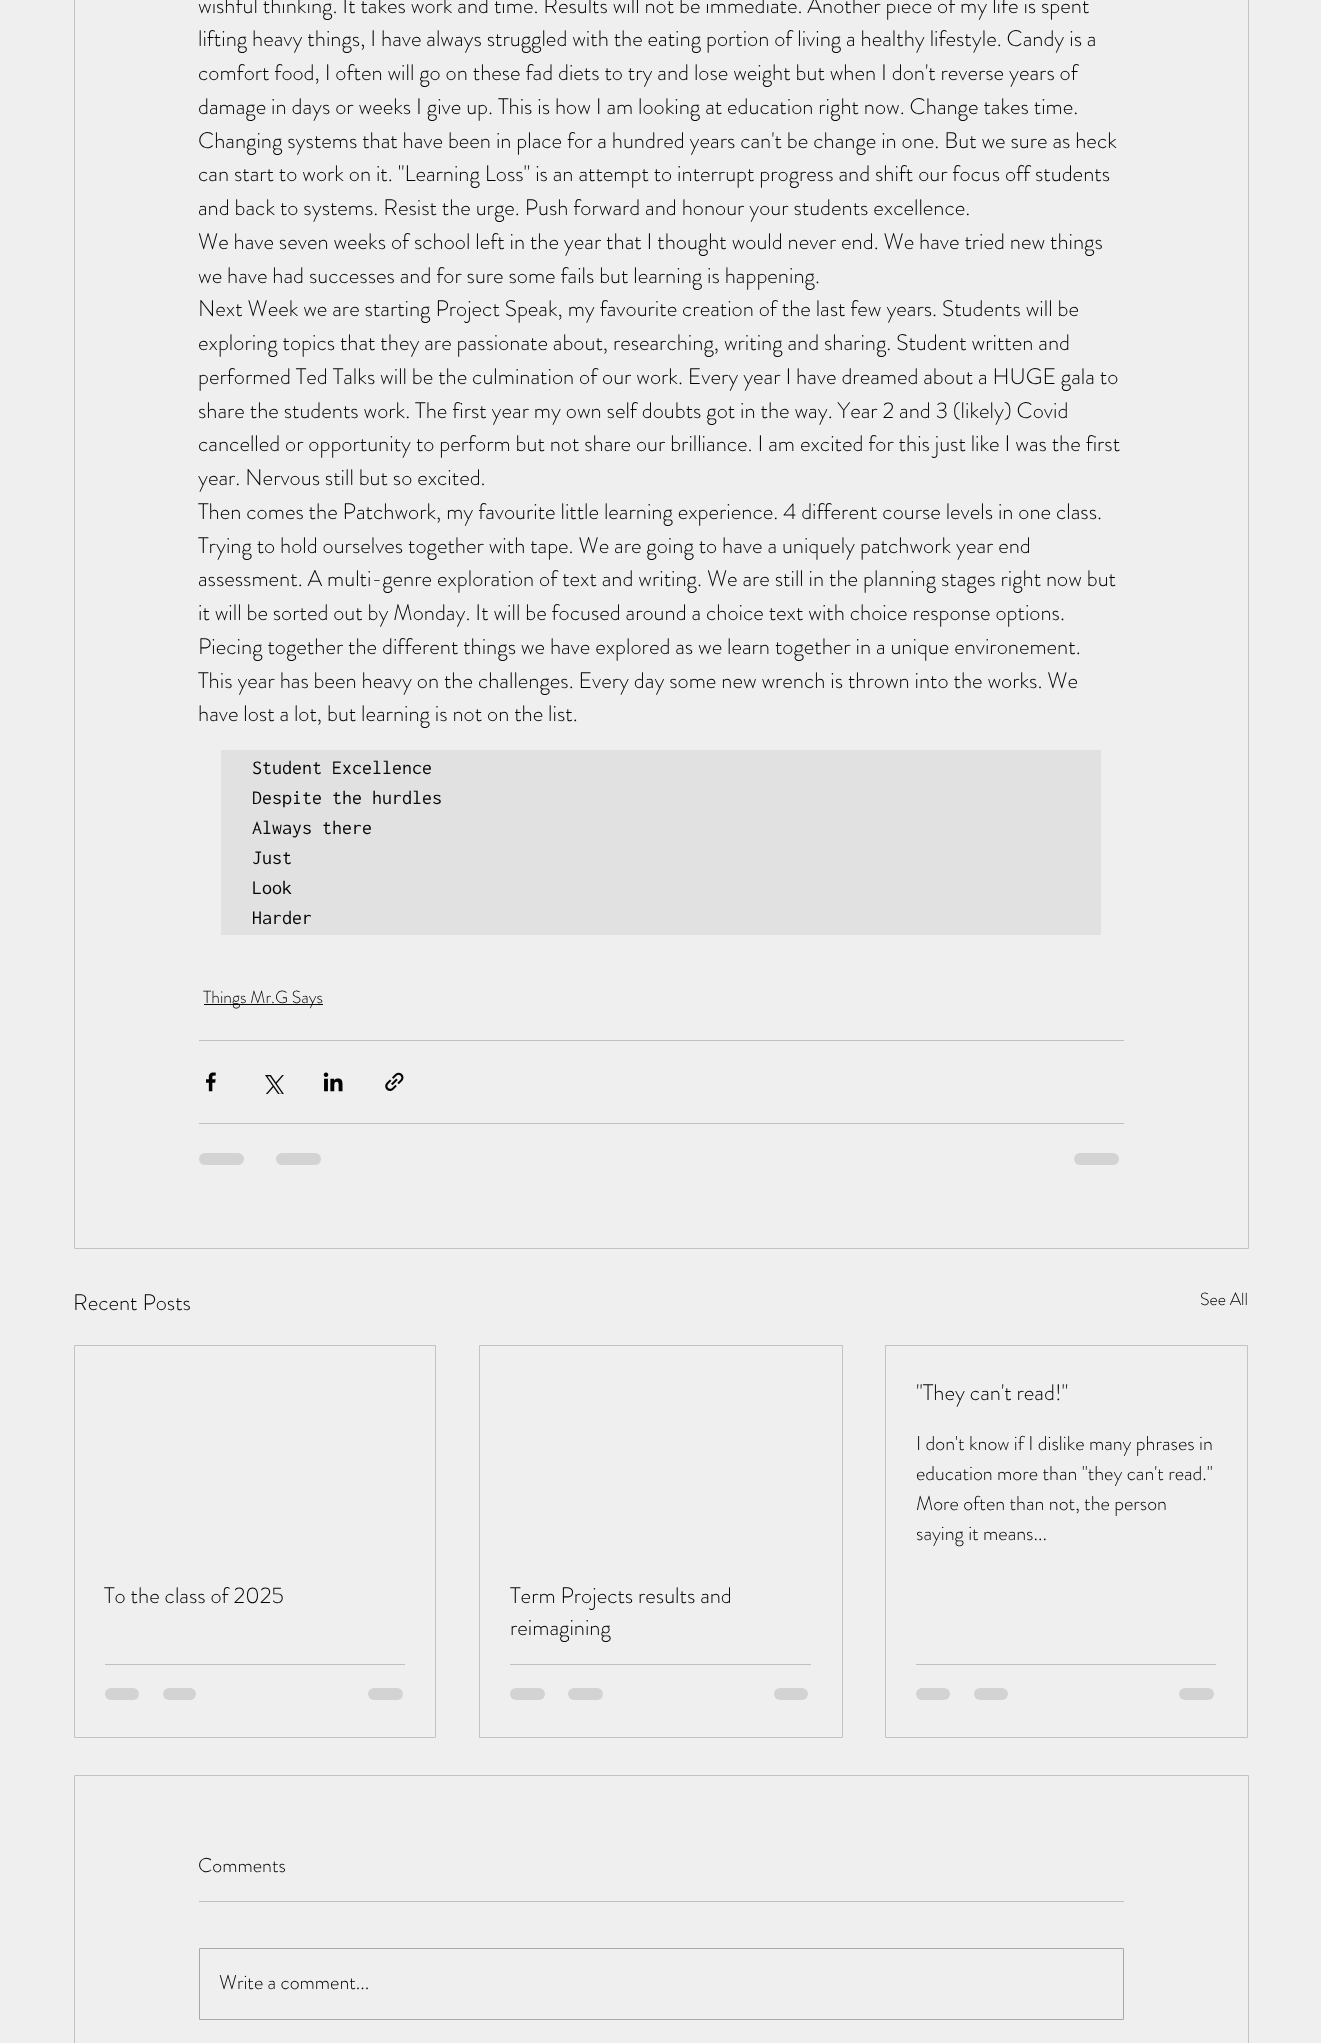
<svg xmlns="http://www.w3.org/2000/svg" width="1321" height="2043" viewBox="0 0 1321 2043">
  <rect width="100%" height="100%" fill="#efefef"/>
  <path d="M74.5 -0.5h1174v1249H74.5z" fill="none" stroke="#c3c3c3"/>
  <path d="M221 750h880v185H221z" fill="#e1e1e1"/>
  <path d="M204 1004h119v1H204z" fill="#020202"/>
  <path d="M199 1040h925v1H199z" fill="#c0c0c0"/>
  <image x="206" y="1072" width="10" height="20" href="img/1.png"/>
  <image x="265" y="1075" width="19" height="19" href="img/2.png"/>
  <image x="323" y="1072" width="20" height="20" href="img/3.png"/>
  <image x="385" y="1072" width="19" height="19" href="img/4.png"/>
  <path d="M199 1123h925v1H199z" fill="#c0c0c0"/>
  <rect x="199" y="1153" width="45" height="12" rx="6" fill="#d3d3d3"/>
  <rect x="276" y="1153" width="45" height="12" rx="6" fill="#d3d3d3"/>
  <rect x="1074" y="1153" width="45" height="12" rx="6" fill="#d3d3d3"/>
  <path d="M885.5 1345.5h362v392H885.5z" fill="none" stroke="#c3c3c3"/>
  <path d="M916 1664h300v1H916z" fill="#c0c0c0"/>
  <rect x="916" y="1688" width="34" height="12" rx="6" fill="#d3d3d3"/>
  <rect x="974" y="1688" width="34" height="12" rx="6" fill="#d3d3d3"/>
  <rect x="1179" y="1688" width="35" height="12" rx="6" fill="#d3d3d3"/>
  <path d="M74.5 1345.5h361v392H74.5z" fill="none" stroke="#c3c3c3"/>
  <path d="M105 1664h300v1H105z" fill="#c0c0c0"/>
  <rect x="105" y="1688" width="34" height="12" rx="6" fill="#d3d3d3"/>
  <rect x="163" y="1688" width="33" height="12" rx="6" fill="#d3d3d3"/>
  <rect x="368" y="1688" width="35" height="12" rx="6" fill="#d3d3d3"/>
  <path d="M479.5 1345.5h363v392H479.5z" fill="none" stroke="#c3c3c3"/>
  <path d="M510 1664h301v1H510z" fill="#c0c0c0"/>
  <rect x="510" y="1688" width="35" height="12" rx="6" fill="#d3d3d3"/>
  <rect x="568" y="1688" width="35" height="12" rx="6" fill="#d3d3d3"/>
  <rect x="774" y="1688" width="34" height="12" rx="6" fill="#d3d3d3"/>
  <path d="M74.5 1775.5h1174v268H74.5z" fill="none" stroke="#c3c3c3"/>
  <path d="M199 1901h925v1H199z" fill="#c0c0c0"/>
  <path d="M199.5 1948.5h924v71H199.5z" fill="none" stroke="#a8a8a8"/>
  <g font-family="'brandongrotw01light'" font-size="22.5" font-weight="300" fill="#020202">
    <text x="198" y="13">wishful thinking. It takes work and time. Results will not be immediate. Another piece of my life is spent</text>
    <text x="198" y="46">lifting heavy things, I have always struggled with the eating portion of living a healthy lifestyle. Candy is a</text>
    <text x="198" y="80">comfort food, I often will go on these fad diets to try and lose weight but when I don't reverse years of</text>
    <text x="198" y="114">damage in days or weeks I give up. This is how I am looking at education right now. Change takes time.</text>
    <text x="198" y="148">Changing systems that have been in place for a hundred years can't be change in one. But we sure as heck</text>
    <text x="198" y="181">can start to work on it. "Learning Loss" is an attempt to interrupt progress and shift our focus off students</text>
    <text x="198" y="215">and back to systems. Resist the urge. Push forward and honour your students excellence.</text>
    <text x="198" y="249">We have seven weeks of school left in the year that I thought would never end. We have tried new things</text>
    <text x="198" y="283">we have had successes and for sure some fails but learning is happening.</text>
    <text x="198" y="316">Next Week we are starting Project Speak, my favourite creation of the last few years. Students will be</text>
    <text x="198" y="350">exploring topics that they are passionate about, researching, writing and sharing. Student written and</text>
    <text x="198" y="384">performed Ted Talks will be the culmination of our work. Every year I have dreamed about a HUGE gala to</text>
    <text x="198" y="418">share the students work. The first year my own self doubts got in the way. Year 2 and 3 (likely) Covid</text>
    <text x="198" y="451">cancelled or opportunity to perform but not share our brilliance. I am excited for this just like I was the first</text>
    <text x="198" y="485">year. Nervous still but so excited.</text>
    <text x="198" y="519">Then comes the Patchwork, my favourite little learning experience. 4 different course levels in one class.</text>
    <text x="198" y="553">Trying to hold ourselves together with tape. We are going to have a uniquely patchwork year end</text>
    <text x="198" y="586">assessment. A multi-genre exploration of text and writing. We are still in the planning stages right now but</text>
    <text x="198" y="620">it will be sorted out by Monday. It will be focused around a choice text with choice response options.</text>
    <text x="198" y="654">Piecing together the different things we have explored as we learn together in a unique environement.</text>
    <text x="198" y="688">This year has been heavy on the challenges. Every day some new wrench is thrown into the works. We</text>
    <text x="198" y="721">have lost a lot, but learning is not on the list.</text>
  </g>
  <g font-family="Inconsolata" font-size="20" fill="#020202">
    <text x="252" y="774">Student Excellence</text>
    <text x="252" y="804">Despite the hurdles</text>
    <text x="252" y="834">Always there</text>
    <text x="252" y="864">Just</text>
    <text x="252" y="894">Look</text>
    <text x="252" y="924">Harder</text>
  </g>
  <text x="203" y="1003" font-family="'brandongrotw01light'" font-size="17.5" font-weight="300" fill="#020202">Things Mr.G Says</text>
  <text x="73" y="1310" font-family="'brandongrotw01light'" font-size="22.5" font-weight="300" fill="#020202">Recent Posts</text>
  <text x="1200" y="1305" font-family="'brandongrotw01light'" font-size="17.5" font-weight="300" fill="#020202">See All</text>
  <text x="916" y="1400" font-family="'brandongrotw01light'" font-size="22.5" font-weight="300" fill="#020202">"They can't read!"</text>
  <g font-family="'brandongrotw01light'" font-size="20" font-weight="300" fill="#020202">
    <text x="916" y="1450">I don't know if I dislike many phrases in</text>
    <text x="916" y="1480">education more than "they can't read."</text>
    <text x="916" y="1510">More often than not, the person</text>
    <text x="916" y="1540">saying it means...</text>
  </g>
  <g font-family="'brandongrotw01light'" font-size="22.5" font-weight="300" fill="#020202">
    <text x="104" y="1603">To the class of 2025</text>
    <text x="510" y="1603">Term Projects results and</text>
    <text x="510" y="1635">reimagining</text>
  </g>
  <g font-family="'brandongrotw01light'" font-size="20" font-weight="300" fill="#020202">
    <text x="198" y="1872">Comments</text>
    <text x="219" y="1989">Write a comment...</text>
  </g>
</svg>
